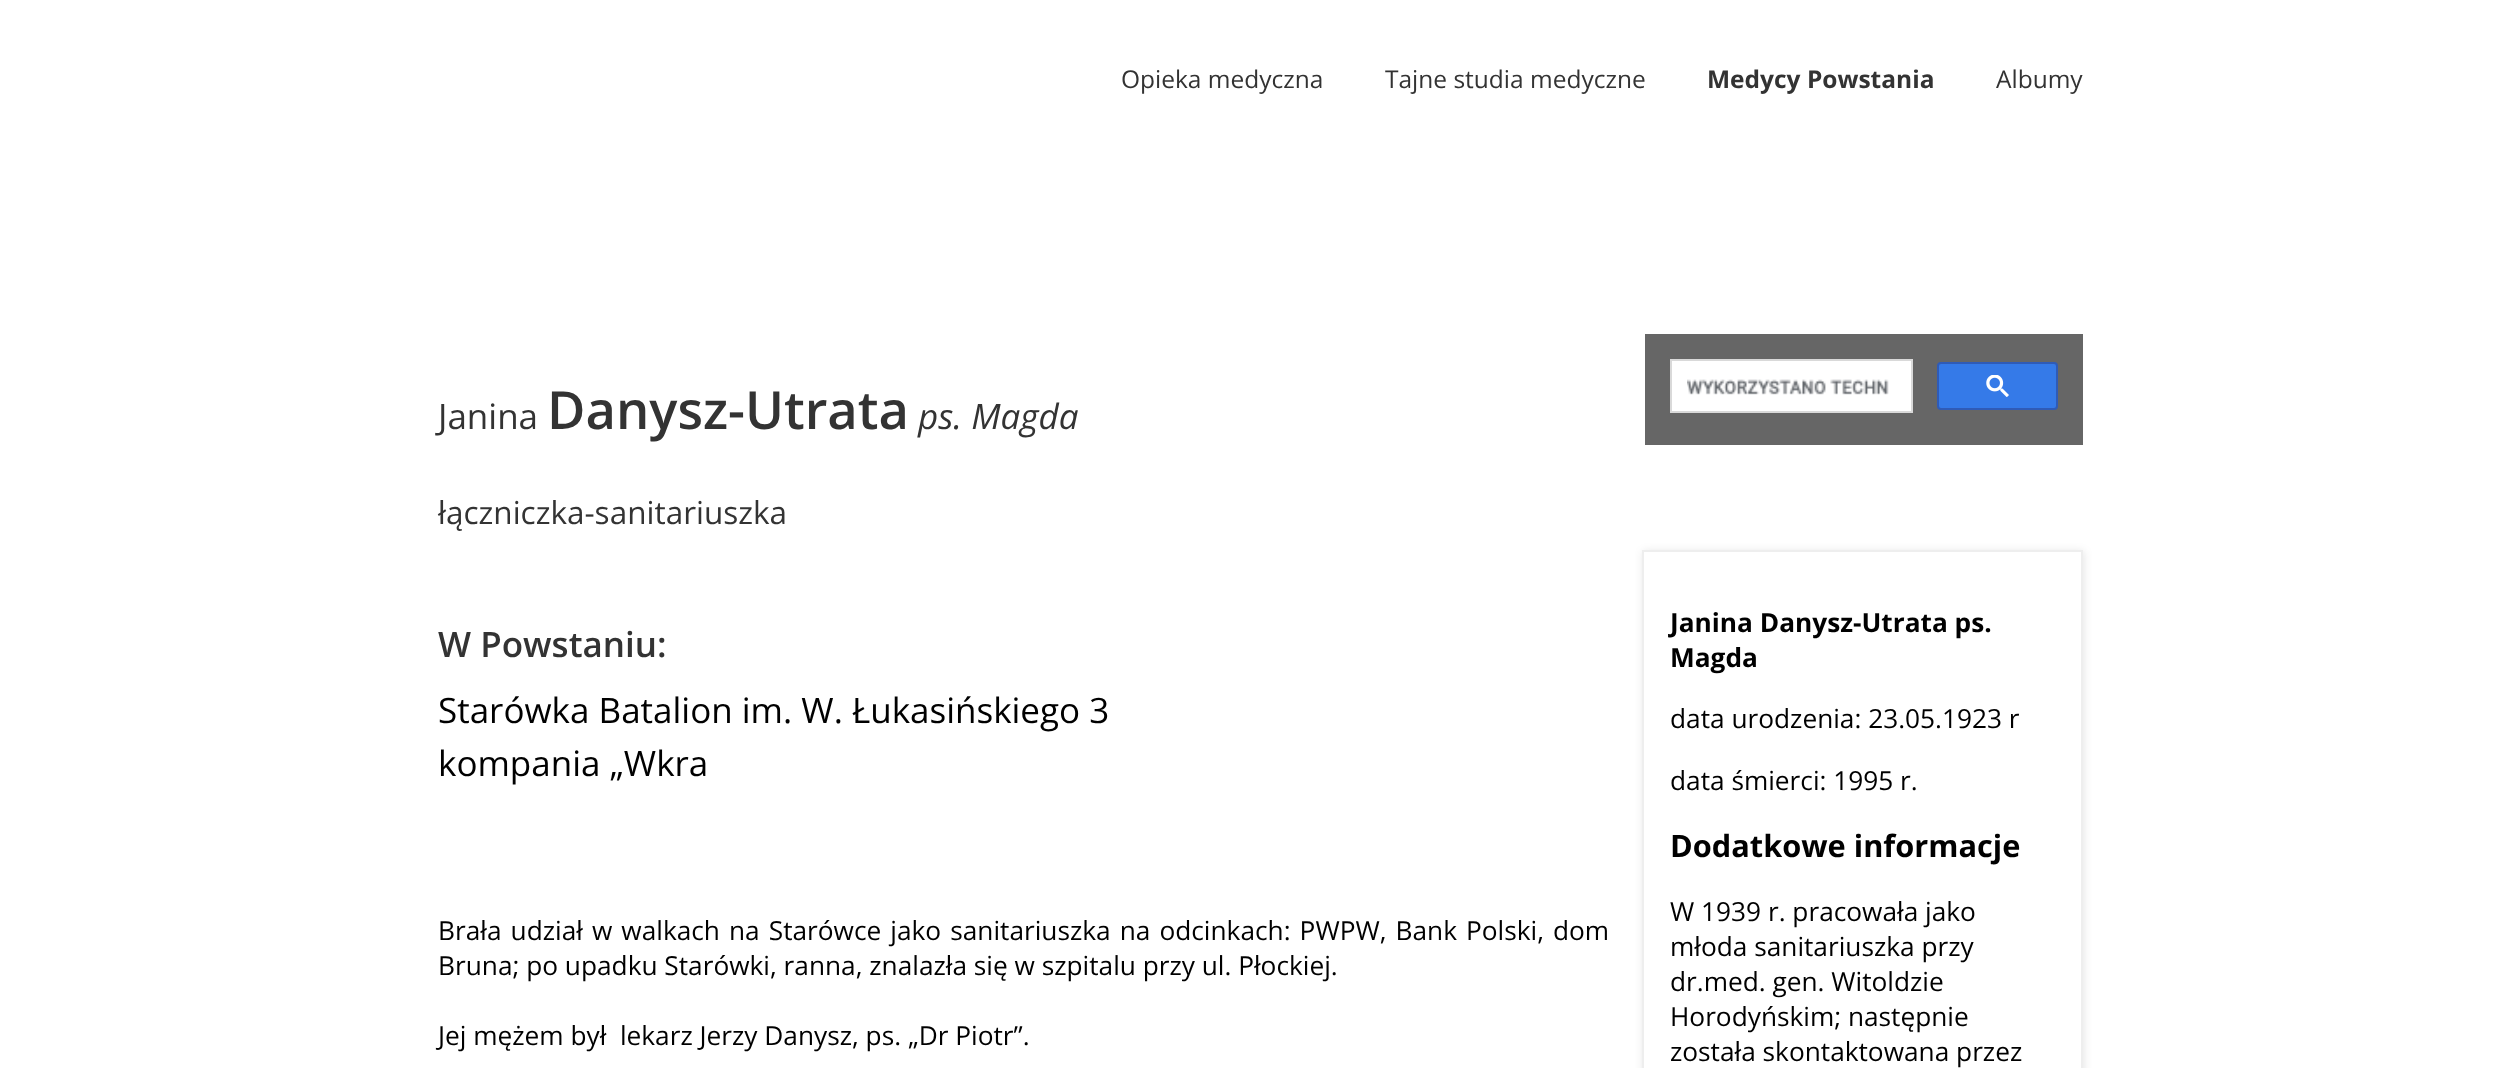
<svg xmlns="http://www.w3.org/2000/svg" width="2520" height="1068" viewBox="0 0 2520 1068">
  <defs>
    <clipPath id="clip1"><path d="M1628 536H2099V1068H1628ZM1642 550H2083V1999H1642Z" clip-rule="evenodd"/></clipPath>
  </defs>
  <rect width="100%" height="100%" fill="#fff"/>
  <path d="M1645 334h438v111H1645z" fill="#666"/>
  <path d="M1671 360h241v52H1671z" fill="#fff" stroke="#d9d9d9" stroke-width="2"/>
  <image x="1687" y="379" width="202" height="16" href="img/1.png"/>
  <rect x="1938" y="363" width="119" height="46" rx="3" fill="#357ae8" stroke="#2f5bb7" stroke-width="2"/>
  <image x="1986" y="375" width="23" height="22" href="img/2.png"/>
  <g clip-path="url(#clip1)">
    <path d="M1643 551h441v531H1643z" fill="#0000001a" filter="blur(4.5px)"/>
  </g>
  <path d="M1643 551h439v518H1643z" fill="none" stroke="#eee" stroke-width="2"/>
  <g font-family="Open Sans" font-size="24.5" fill="#333">
    <text x="1121" y="88">Opieka medyczna</text>
    <text x="1385" y="88">Tajne studia medyczne</text>
  </g>
  <text x="1707" y="88" font-family="Open Sans" font-size="24.5" font-weight="bold" fill="#333">Medycy Powstania</text>
  <text x="1996" y="88" font-family="Open Sans" font-size="24.5" fill="#333">Albumy</text>
  <text x="438" y="429" font-family="Open Sans" font-size="35" fill="#333">Janina</text>
  <text x="547" y="429" font-family="Open Sans" font-size="52.5" font-weight="600" fill="#333">Danysz-Utrata</text>
  <text x="918" y="429" font-family="Open Sans" font-size="35" font-style="italic" fill="#333">ps. Magda</text>
  <text x="438" y="524" font-family="Open Sans" font-size="31.5" fill="#333">łączniczka-sanitariuszka</text>
  <text x="438" y="657" font-family="Open Sans" font-size="35" font-weight="600" fill="#333">W Powstaniu:</text>
  <g font-family="Open Sans" font-size="35" fill="#000">
    <text x="438" y="723">Starówka Batalion im. W. Łukasińskiego 3</text>
    <text x="438" y="776">kompania „Wkra</text>
  </g>
  <g font-family="Open Sans" font-size="26.25" fill="#000">
    <text x="438" y="940" word-spacing="2.25">Brała udział w walkach na Starówce jako sanitariuszka na odcinkach: PWPW, Bank Polski, dom</text>
    <text x="438" y="975">Bruna; po upadku Starówki, ranna, znalazła się w szpitalu przy ul. Płockiej.</text>
    <text x="438" y="1045" xml:space="preserve">Jej mężem był  lekarz Jerzy Danysz, ps. „Dr Piotr”.</text>
  </g>
  <g font-family="Open Sans" font-size="26.25" font-weight="bold" fill="#000">
    <text x="1670" y="632">Janina Danysz-Utrata ps.</text>
    <text x="1670" y="667">Magda</text>
  </g>
  <g font-family="Open Sans" font-size="26.25" fill="#000">
    <text x="1670" y="728">data urodzenia: 23.05.1923 r</text>
    <text x="1670" y="790">data śmierci: 1995 r.</text>
  </g>
  <text x="1670" y="857" font-family="Open Sans" font-size="30.75" font-weight="bold" fill="#000">Dodatkowe informacje</text>
  <g font-family="Open Sans" font-size="26.25" fill="#000">
    <text x="1670" y="921">W 1939 r. pracowała jako</text>
    <text x="1670" y="956">młoda sanitariuszka przy</text>
    <text x="1670" y="991">dr.med. gen. Witoldzie</text>
    <text x="1670" y="1026">Horodyńskim; następnie</text>
    <text x="1670" y="1061">została skontaktowana przez</text>
  </g>
</svg>
